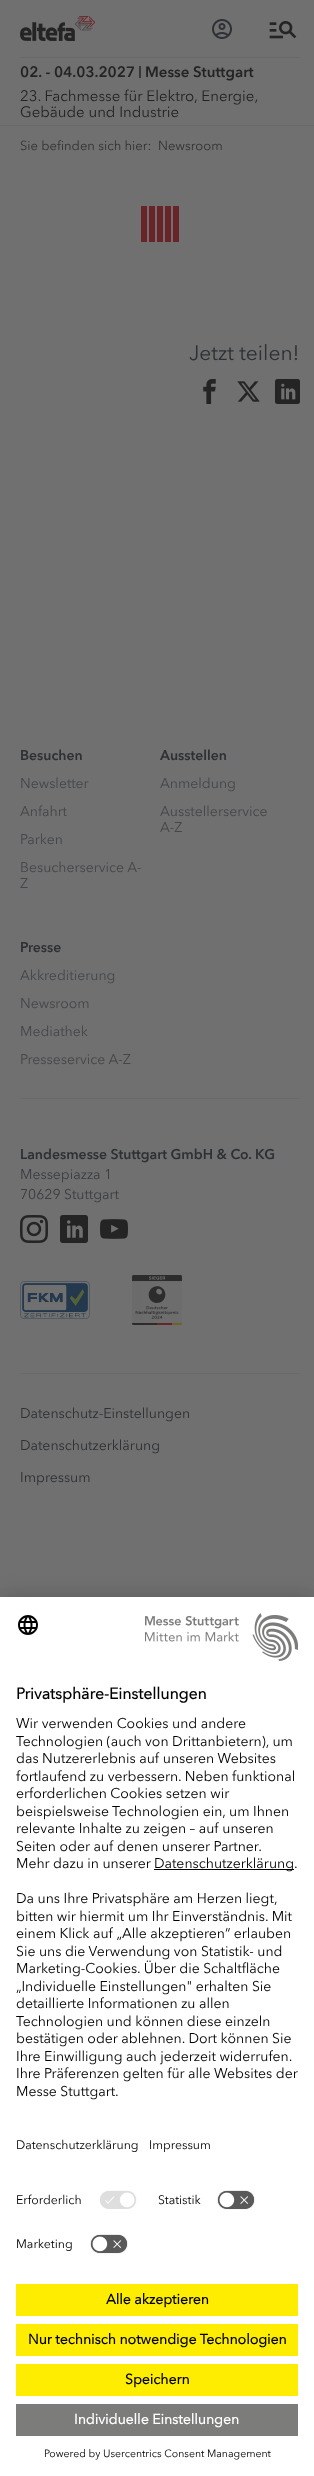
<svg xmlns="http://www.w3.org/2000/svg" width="314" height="2476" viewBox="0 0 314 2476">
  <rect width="100%" height="100%" fill="#707070"/>
  <path d="M0 125h314v1H0z" fill="#68696a"/>
  <image x="20" y="16" width="75" height="25" href="img/1.png"/>
  <image x="212" y="19" width="20" height="20" href="img/2.png"/>
  <image x="269" y="21" width="28" height="18" href="img/3.png"/>
  <path d="M20 57h280v1H20z" fill="#68696a"/>
  <path d="M139 66h2v12H139z" fill="#373737"/>
  <path d="M141 206h6v36H141z" fill="#682428"/>
  <path d="M149 206h6v36H149z" fill="#682428"/>
  <path d="M157 206h6v36H157z" fill="#682428"/>
  <path d="M165 206h6v36H165z" fill="#682428"/>
  <path d="M173 206h6v36H173z" fill="#682428"/>
  <image x="203" y="379" width="13" height="25" href="img/4.png"/>
  <image x="237" y="381" width="23" height="21" href="img/5.png"/>
  <image x="275" y="379" width="25" height="25" href="img/6.png"/>
  <path d="M20 1098h280v1H20z" fill="#68696a"/>
  <image x="20" y="1215" width="28" height="28" href="img/7.png"/>
  <image x="60" y="1215" width="28" height="28" href="img/8.png"/>
  <image x="100" y="1219" width="28" height="20" href="img/9.png"/>
  <image x="20" y="1281" width="70" height="38" href="img/10.png"/>
  <image x="132" y="1275" width="50" height="50" href="img/11.png"/>
  <path d="M20 1373h280v1H20z" fill="#68696a"/>
  <path d="M0 1617h314v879H0z" fill="#0000004d" filter="blur(14px)"/>
  <path d="M0 1602h314v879H0z" fill="#00000038" filter="blur(13px)"/>
  <path d="M0 1597h314v879H0z" fill="#fff"/>
  <image x="18" y="1615" width="20" height="20" href="img/12.png"/>
  <image x="145" y="1613" width="153" height="48" href="img/13.png"/>
  <path d="M154 1869h140v1H154z" fill="#000"/>
  <image x="99" y="2190" width="38" height="19" href="img/14.png"/>
  <image x="217" y="2190" width="38" height="20" href="img/15.png"/>
  <image x="90" y="2234" width="38" height="20" href="img/15.png"/>
  <path d="M16 2284h282v32H16z" fill="#ffed00"/>
  <path d="M16 2324h282v32H16z" fill="#ffed00"/>
  <path d="M16 2364h282v32H16z" fill="#ffed00"/>
  <path d="M16 2404h282v32H16z" fill="#7c7c7b"/>
  <g font-family="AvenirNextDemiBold" font-size="15" font-weight="bold" fill="#242424">
    <text x="20" y="77">02. - 04.03.2027</text>
    <text x="145" y="77">Messe Stuttgart</text>
  </g>
  <g font-family="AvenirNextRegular" font-size="15" fill="#242424">
    <text x="20" y="101">23. Fachmesse für Elektro, Energie,</text>
    <text x="20" y="117">Gebäude und Industrie</text>
  </g>
  <g font-family="AvenirNextRegular" font-size="13" fill="#333">
    <text x="20" y="150">Sie befinden sich hier:</text>
    <text x="158" y="150">Newsroom</text>
  </g>
  <text x="189" y="360" font-family="AvenirNextRegular" font-size="21" fill="#2d3034">Jetzt teilen!</text>
  <text x="20" y="760" font-family="AvenirNextDemiBold" font-size="14" font-weight="bold" fill="#2d3034">Besuchen</text>
  <g font-family="AvenirNextRegular" font-size="14" fill="#44464a">
    <text x="20" y="788">Newsletter</text>
    <text x="20" y="816">Anfahrt</text>
    <text x="20" y="844">Parken</text>
    <text x="20" y="872">Besucherservice A-</text>
    <text x="20" y="888">Z</text>
  </g>
  <text x="160" y="760" font-family="AvenirNextDemiBold" font-size="14" font-weight="bold" fill="#2d3034">Ausstellen</text>
  <g font-family="AvenirNextRegular" font-size="14" fill="#44464a">
    <text x="160" y="788">Anmeldung</text>
    <text x="160" y="816">Ausstellerservice</text>
    <text x="160" y="832">A-Z</text>
  </g>
  <text x="20" y="952" font-family="AvenirNextDemiBold" font-size="14" font-weight="bold" fill="#2d3034">Presse</text>
  <g font-family="AvenirNextRegular" font-size="14" fill="#44464a">
    <text x="20" y="980">Akkreditierung</text>
    <text x="20" y="1008">Newsroom</text>
    <text x="20" y="1036">Mediathek</text>
    <text x="20" y="1064">Presseservice A-Z</text>
  </g>
  <text x="20" y="1159" font-family="AvenirNextDemiBold" font-size="14" font-weight="bold" fill="#2d3034">Landesmesse Stuttgart GmbH &amp; Co. KG</text>
  <g font-family="AvenirNextRegular" font-size="14" fill="#3a3d41">
    <text x="20" y="1179">Messepiazza 1</text>
    <text x="20" y="1199">70629 Stuttgart</text>
  </g>
  <g font-family="AvenirNextRegular" font-size="14" fill="#2d3034">
    <text x="20" y="1418">Datenschutz-Einstellungen</text>
    <text x="20" y="1450">Datenschutzerklärung</text>
    <text x="20" y="1482">Impressum</text>
  </g>
  <text x="16" y="1699" font-family="AvenirNextRegular" font-size="15.75" font-weight="bold" fill="#000">Privatsphäre-Einstellungen</text>
  <g font-family="AvenirNextRegular" font-size="14" fill="#000">
    <text x="16" y="1728">Wir verwenden Cookies und andere</text>
    <text x="16" y="1746">Technologien (auch von Drittanbietern), um</text>
    <text x="16" y="1763">das Nutzererlebnis auf unseren Websites</text>
    <text x="16" y="1781">fortlaufend zu verbessern. Neben funktional</text>
    <text x="16" y="1798">erforderlichen Cookies setzen wir</text>
    <text x="16" y="1816">beispielsweise Technologien ein, um Ihnen</text>
    <text x="16" y="1833">relevante Inhalte zu zeigen – auf unseren</text>
    <text x="16" y="1851">Seiten oder auf denen unserer Partner.</text>
    <text x="16" y="1868">Mehr dazu in unserer</text>
    <text x="154" y="1868">Datenschutzerklärung.</text>
    <text x="16" y="1903">Da uns Ihre Privatsphäre am Herzen liegt,</text>
    <text x="16" y="1921">bitten wir hiermit um Ihr Einverständnis. Mit</text>
    <text x="16" y="1938">einem Klick auf „Alle akzeptieren“ erlauben</text>
    <text x="16" y="1956">Sie uns die Verwendung von Statistik- und</text>
    <text x="16" y="1973">Marketing-Cookies. Über die Schaltfläche</text>
    <text x="16" y="1991">„Individuelle Einstellungen" erhalten Sie</text>
    <text x="16" y="2008">detaillierte Informationen zu allen</text>
    <text x="16" y="2026">Technologien und können diese einzeln</text>
    <text x="16" y="2043">bestätigen oder ablehnen. Dort können Sie</text>
    <text x="16" y="2061">Ihre Einwilligung auch jederzeit widerrufen.</text>
    <text x="16" y="2078">Ihre Präferenzen gelten für alle Websites der</text>
    <text x="16" y="2096">Messe Stuttgart.</text>
  </g>
  <g font-family="AvenirNextRegular" font-size="12.25" fill="#000">
    <text x="16" y="2149">Datenschutzerklärung</text>
    <text x="149" y="2149">Impressum</text>
    <text x="16" y="2204">Erforderlich</text>
    <text x="158" y="2204">Statistik</text>
    <text x="16" y="2248">Marketing</text>
  </g>
  <g font-family="AvenirNextRegular" font-size="14" font-weight="bold" fill="#000">
    <text x="106" y="2304">Alle akzeptieren</text>
    <text x="28" y="2344">Nur technisch notwendige Technologien</text>
    <text x="125" y="2384">Speichern</text>
  </g>
  <text x="74" y="2424" font-family="AvenirNextRegular" font-size="14" font-weight="bold" fill="#fff">Individuelle Einstellungen</text>
  <text x="44" y="2457" font-family="AvenirNextRegular" font-size="10.5" fill="#000">Powered by Usercentrics Consent Management</text>
</svg>
